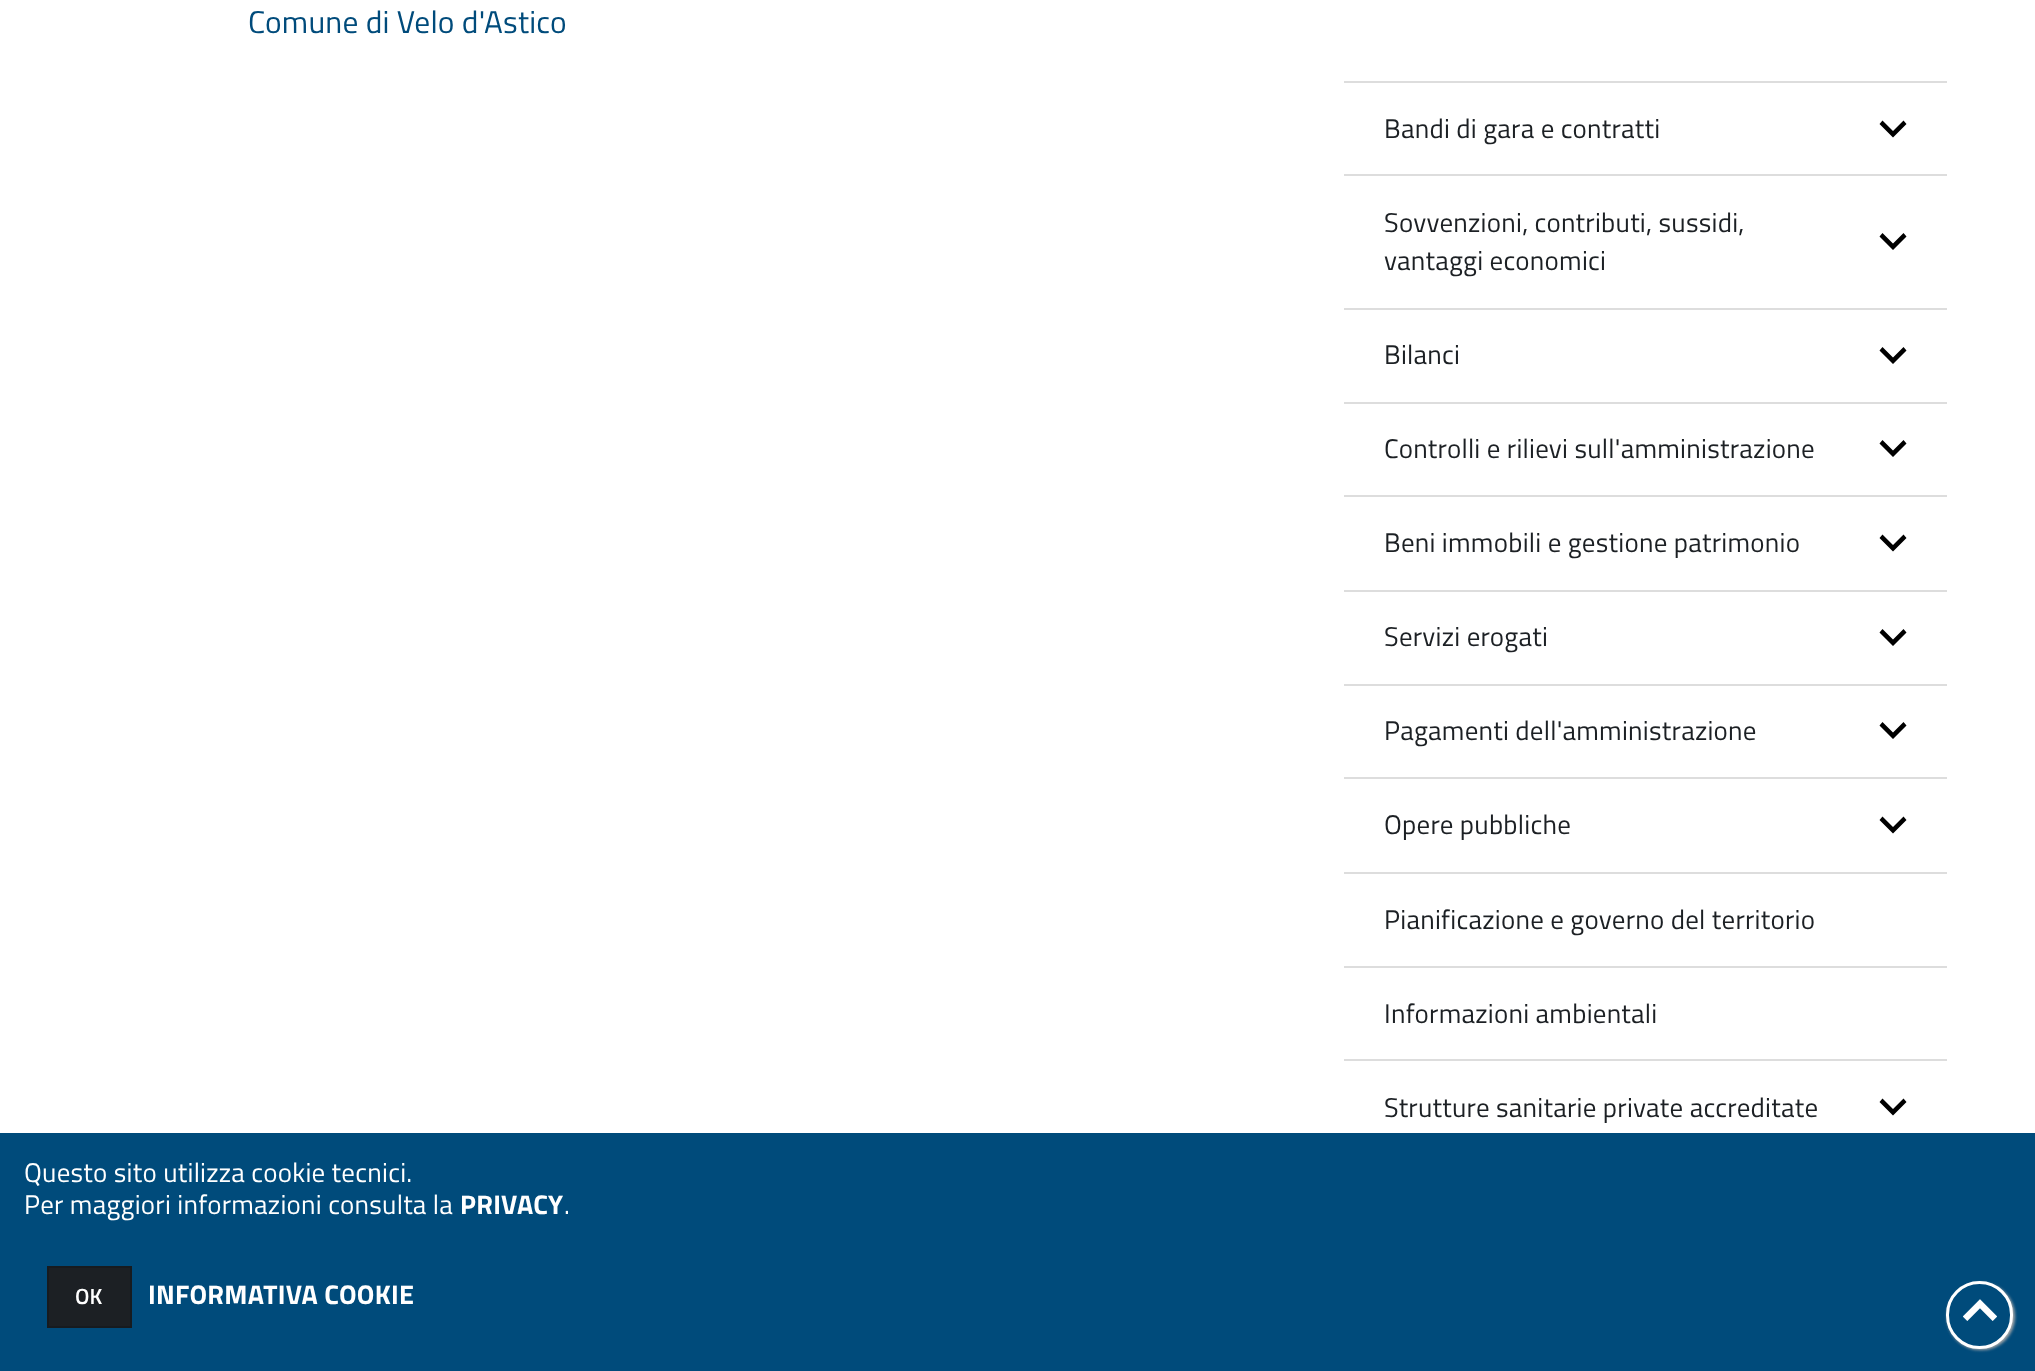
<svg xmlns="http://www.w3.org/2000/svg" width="2035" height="1371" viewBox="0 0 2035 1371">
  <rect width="100%" height="100%" fill="#fff"/>
  <path d="M1344 81h603v2H1344z" fill="#ddd"/>
  <path d="M1882.5 120.5L1879.5 124L1893 137.5L1906.5 124L1903.5 120.5L1893 131Z" fill="#000"/>
  <path d="M1344 174h603v2H1344z" fill="#ddd"/>
  <path d="M1882.5 233L1879.5 236.5L1893 250L1906.5 236.5L1903.5 233L1893 243.5Z" fill="#000"/>
  <path d="M1344 308h603v2H1344z" fill="#ddd"/>
  <path d="M1882.5 347L1879.5 350.5L1893 364L1906.5 350.5L1903.5 347L1893 357.5Z" fill="#000"/>
  <path d="M1344 402h603v2H1344z" fill="#ddd"/>
  <path d="M1882.5 440L1879.5 443.5L1893 457L1906.5 443.5L1903.5 440L1893 450.5Z" fill="#000"/>
  <path d="M1344 495h603v2H1344z" fill="#ddd"/>
  <path d="M1882.5 534.5L1879.5 538L1893 551.5L1906.5 538L1903.5 534.5L1893 545Z" fill="#000"/>
  <path d="M1344 590h603v2H1344z" fill="#ddd"/>
  <path d="M1882.5 629L1879.5 632.5L1893 646L1906.5 632.5L1903.5 629L1893 639.5Z" fill="#000"/>
  <path d="M1344 684h603v2H1344z" fill="#ddd"/>
  <path d="M1882.5 722L1879.5 725.5L1893 739L1906.5 725.5L1903.5 722L1893 732.5Z" fill="#000"/>
  <path d="M1344 777h603v2H1344z" fill="#ddd"/>
  <path d="M1882.5 816.5L1879.5 820L1893 833.5L1906.5 820L1903.5 816.5L1893 827Z" fill="#000"/>
  <path d="M1344 872h603v2H1344z" fill="#ddd"/>
  <path d="M1344 966h603v2H1344z" fill="#ddd"/>
  <path d="M1344 1059h603v2H1344z" fill="#ddd"/>
  <path d="M1882.5 1098.5L1879.5 1102L1893 1115.5L1906.5 1102L1903.5 1098.5L1893 1109Z" fill="#000"/>
  <path d="M0 1133h2035v238H0z" fill="#004b7b"/>
  <path d="M48 1267h83v60H48z" fill="#1c2024" stroke="#171b1f" stroke-width="2"/>
  <rect x="1947" y="1283" width="68" height="67" rx="33.5" fill="#aaa" filter="blur(1.5px)"/>
  <rect x="1947.5" y="1282.5" width="64" height="65" rx="32" fill="#004b7b" stroke="#fff" stroke-width="3"/>
  <text x="248" y="33" font-family="Titillium Web" font-size="31.5" letter-spacing="0.2" fill="#004b7b">Comune di Velo d'Astico</text>
  <g font-family="Titillium Web" font-size="27" letter-spacing="0.25" fill="#1c2024">
    <text x="1384" y="138">Bandi di gara e contratti</text>
    <text x="1384" y="232">Sovvenzioni, contributi, sussidi,</text>
    <text x="1384" y="270">vantaggi economici</text>
    <text x="1384" y="364">Bilanci</text>
    <text x="1384" y="458">Controlli e rilievi sull'amministrazione</text>
    <text x="1384" y="552">Beni immobili e gestione patrimonio</text>
    <text x="1384" y="646">Servizi erogati</text>
    <text x="1384" y="740">Pagamenti dell'amministrazione</text>
    <text x="1384" y="834">Opere pubbliche</text>
    <text x="1384" y="929">Pianificazione e governo del territorio</text>
    <text x="1384" y="1023">Informazioni ambientali</text>
    <text x="1384" y="1117">Strutture sanitarie private accreditate</text>
  </g>
  <g font-family="Titillium Web" font-size="27" letter-spacing="0.25" fill="#fff">
    <text x="24" y="1182">Questo sito utilizza cookie tecnici.</text>
    <text x="24" y="1214">Per maggiori informazioni consulta la</text>
  </g>
  <text x="460" y="1214" font-family="Titillium Web" font-size="27" font-weight="bold" letter-spacing="0.25" fill="#fff">PRIVACY</text>
  <text x="564" y="1214" font-family="Titillium Web" font-size="27" letter-spacing="0.25" fill="#fff">.</text>
  <text x="75" y="1304" font-family="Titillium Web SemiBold" font-size="22" font-weight="600" fill="#fff">OK</text>
  <text x="148" y="1304" font-family="Titillium Web" font-size="27" font-weight="bold" letter-spacing="0.25" fill="#fff">INFORMATIVA COOKIE</text>
  <text x="1963" y="1325" font-family="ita" font-size="33" font-weight="bold" fill="#fff">⏷</text>
</svg>
